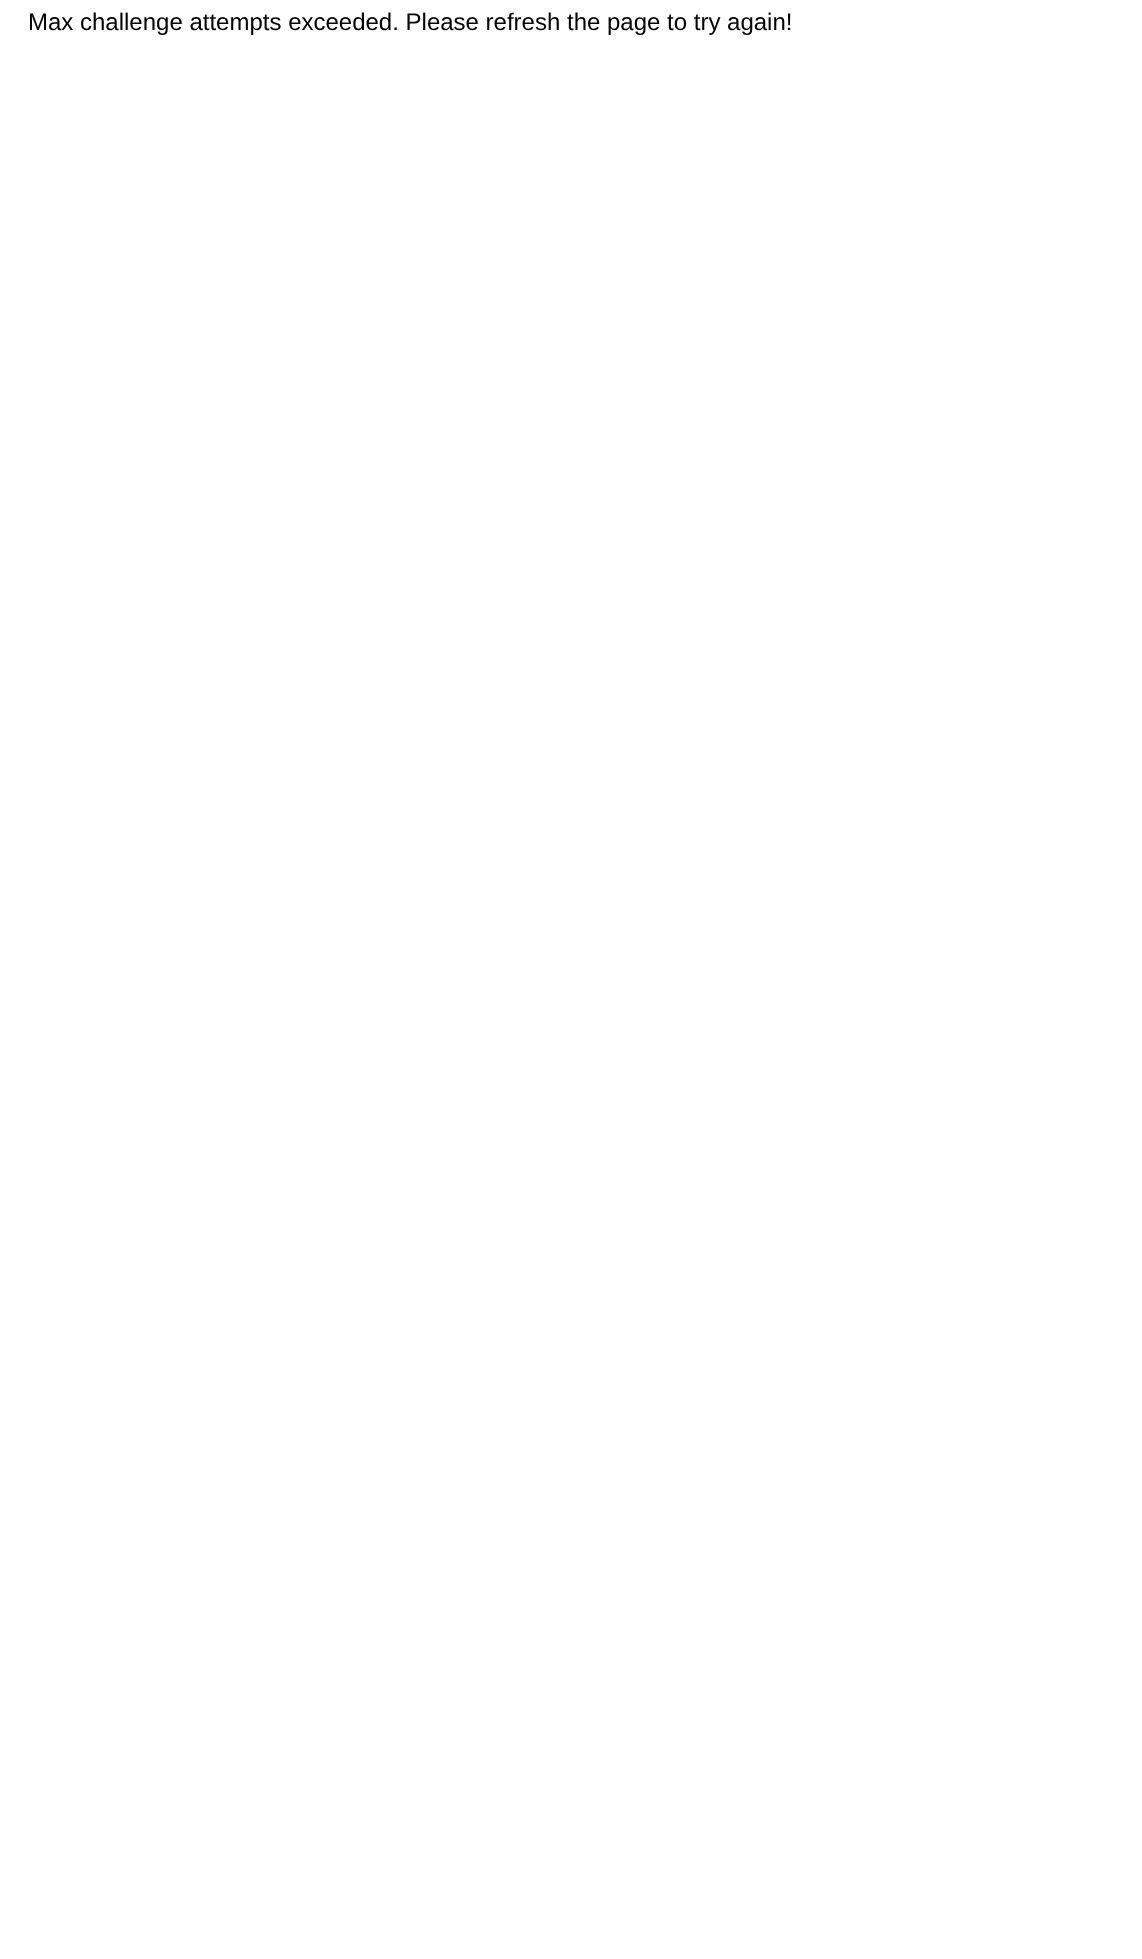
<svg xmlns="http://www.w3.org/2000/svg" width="1142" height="1959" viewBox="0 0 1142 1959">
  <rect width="100%" height="100%" fill="#fff"/>
  <text x="28" y="30" font-family="Liberation Sans" font-size="24" fill="#000">Max challenge attempts exceeded. Please refresh the page to try again!</text>
</svg>
